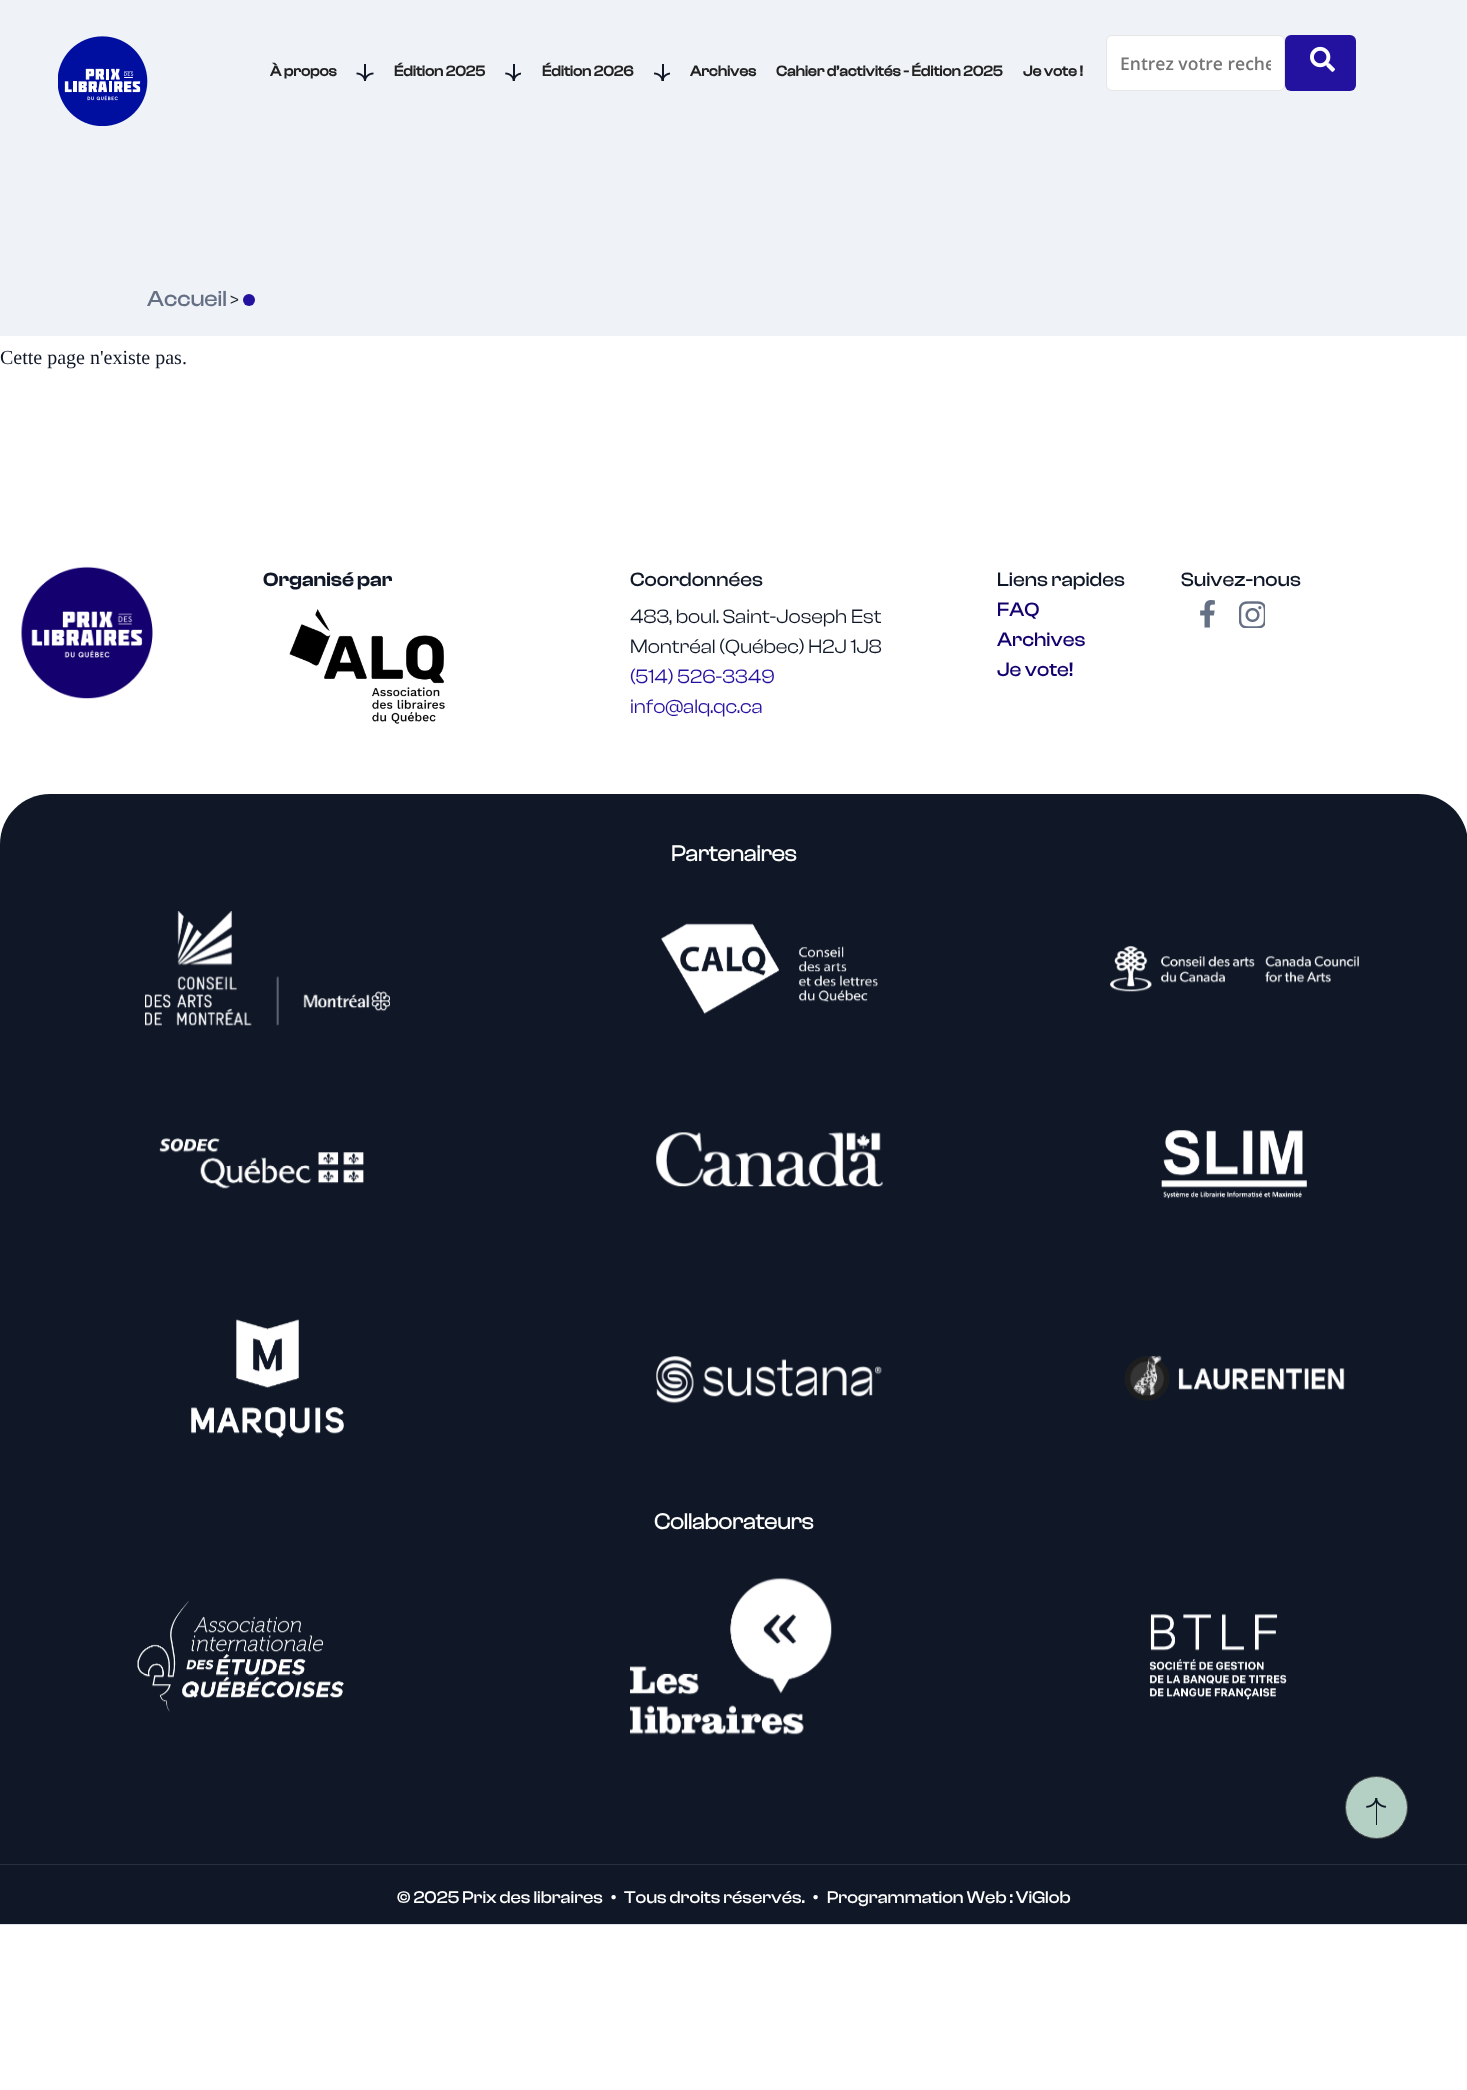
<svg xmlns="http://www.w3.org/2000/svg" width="1467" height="2090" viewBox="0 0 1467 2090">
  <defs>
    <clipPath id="clip1"><path d="M1120 51h151v24H1120z"/></clipPath>
  </defs>
  <rect width="100%" height="100%" fill="#fff"/>
  <path d="M0 0h1467v336H0z" fill="#eff2f6"/>
  <image x="58" y="36" width="90" height="90" href="img/1.png"/>
  <image x="356" y="64" width="18" height="17" href="img/2.png"/>
  <image x="505" y="64" width="16" height="17" href="img/3.png"/>
  <image x="654" y="64" width="16" height="17" href="img/4.png"/>
  <rect x="1106.5" y="35.5" width="178" height="55" rx="5.5" fill="#fff" stroke="#e5e5e5"/>
  <rect x="1285" y="35" width="71" height="56" rx="6" fill="#23119f"/>
  <image x="1310" y="46" width="25" height="26" href="img/5.png"/>
  <circle cx="249" cy="300" r="6" fill="#23119f"/>
  <image x="21" y="566" width="132" height="133" href="img/6.png"/>
  <image x="289" y="609" width="156" height="115" href="img/7.png"/>
  <image x="1200" y="600" width="15" height="28" href="img/8.png"/>
  <image x="1239" y="601" width="26" height="27" href="img/9.png"/>
  <path d="M50 794H1418C1445.5 794 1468 816.5 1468 844V1925H0V844C0 816.5 22.5 794 50 794Z" fill="#101828"/>
  <path d="M0 1924h1467v1H0z" fill="#dee2e6"/>
  <image x="145" y="911" width="245" height="115" href="img/10.png"/>
  <image x="661" y="923" width="217" height="92" href="img/11.png"/>
  <image x="1110" y="946" width="249" height="46" href="img/12.png"/>
  <image x="159" y="1138" width="205" height="51" href="img/13.png"/>
  <image x="656" y="1132" width="227" height="55" href="img/14.png"/>
  <image x="1161" y="1130" width="146" height="69" href="img/15.png"/>
  <image x="191" y="1319" width="153" height="120" href="img/16.png"/>
  <image x="656" y="1356" width="226" height="48" href="img/17.png"/>
  <image x="1124" y="1355" width="221" height="46" href="img/18.png"/>
  <image x="137" y="1601" width="207" height="111" href="img/19.png"/>
  <image x="630" y="1578" width="202" height="157" href="img/20.png"/>
  <image x="1149" y="1614" width="138" height="86" href="img/21.png"/>
  <circle cx="1376.5" cy="1807.5" r="31" fill="#b4d0c4" stroke="#454547"/>
  <image x="1366" y="1798" width="20" height="27" href="img/22.png"/>
  <path d="M0 1864h1467v1H0z" fill="#273140"/>
  <g font-family="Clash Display" font-size="15" font-weight="bold" fill="#222">
    <text x="270" y="76">À propos</text>
    <text x="394" y="76">Édition 2025</text>
    <text x="542" y="76">Édition 2026</text>
    <text x="690" y="76">Archives</text>
    <text x="776" y="76">Cahier d’activités - Édition 2025</text>
    <text x="1023" y="76">Je vote !</text>
  </g>
  <g clip-path="url(#clip1)">
    <text x="1120" y="70" font-family="Open Sans" font-size="17.5" font-weight="600" fill="#757575">Entrez votre reche</text>
  </g>
  <text x="147" y="306" font-family="Clash Display" font-size="22.5" font-weight="500" fill="#667085">Accueil</text>
  <text x="230" y="306" font-family="Clash Display" font-size="19" fill="#212529">&gt;</text>
  <text x="0" y="364" font-family="Liberation Serif" font-size="20" fill="#101828">Cette page n'existe pas.</text>
  <text x="263" y="586" font-family="Clash Display" font-size="20" font-weight="600" fill="#101828">Organisé par</text>
  <text x="630" y="586" font-family="Clash Display" font-size="20" font-weight="500" fill="#101828">Coordonnées</text>
  <g font-family="Clash Display" font-size="20" fill="#101828">
    <text x="630" y="623">483, boul. Saint-Joseph Est</text>
    <text x="630" y="653">Montréal (Québec) H2J 1J8</text>
  </g>
  <g font-family="Clash Display" font-size="20" fill="#23119f">
    <text x="630" y="683">(514) 526-3349</text>
    <text x="630" y="713">info@alq.qc.ca</text>
  </g>
  <text x="997" y="586" font-family="Clash Display" font-size="20" font-weight="500" fill="#101828">Liens rapides</text>
  <g font-family="Clash Display" font-size="20" font-weight="500" fill="#14006f">
    <text x="997" y="616">FAQ</text>
    <text x="997" y="646">Archives</text>
    <text x="997" y="676">Je vote!</text>
  </g>
  <text x="1181" y="586" font-family="Clash Display" font-size="20" font-weight="500" fill="#101828">Suivez-nous</text>
  <g font-family="'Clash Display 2'" font-size="22.5" font-weight="bold" fill="#fff">
    <text x="671" y="861">Partenaires</text>
    <text x="654" y="1529">Collaborateurs</text>
  </g>
  <g font-family="Clash Display" font-size="17.5" font-weight="500" fill="#fff">
    <text x="397" y="1903">© 2025 Prix des libraires</text>
    <text x="611" y="1903">•</text>
    <text x="624" y="1903">Tous droits réservés.</text>
    <text x="813" y="1903">•</text>
    <text x="827" y="1903">Programmation Web : ViGlob</text>
  </g>
</svg>
